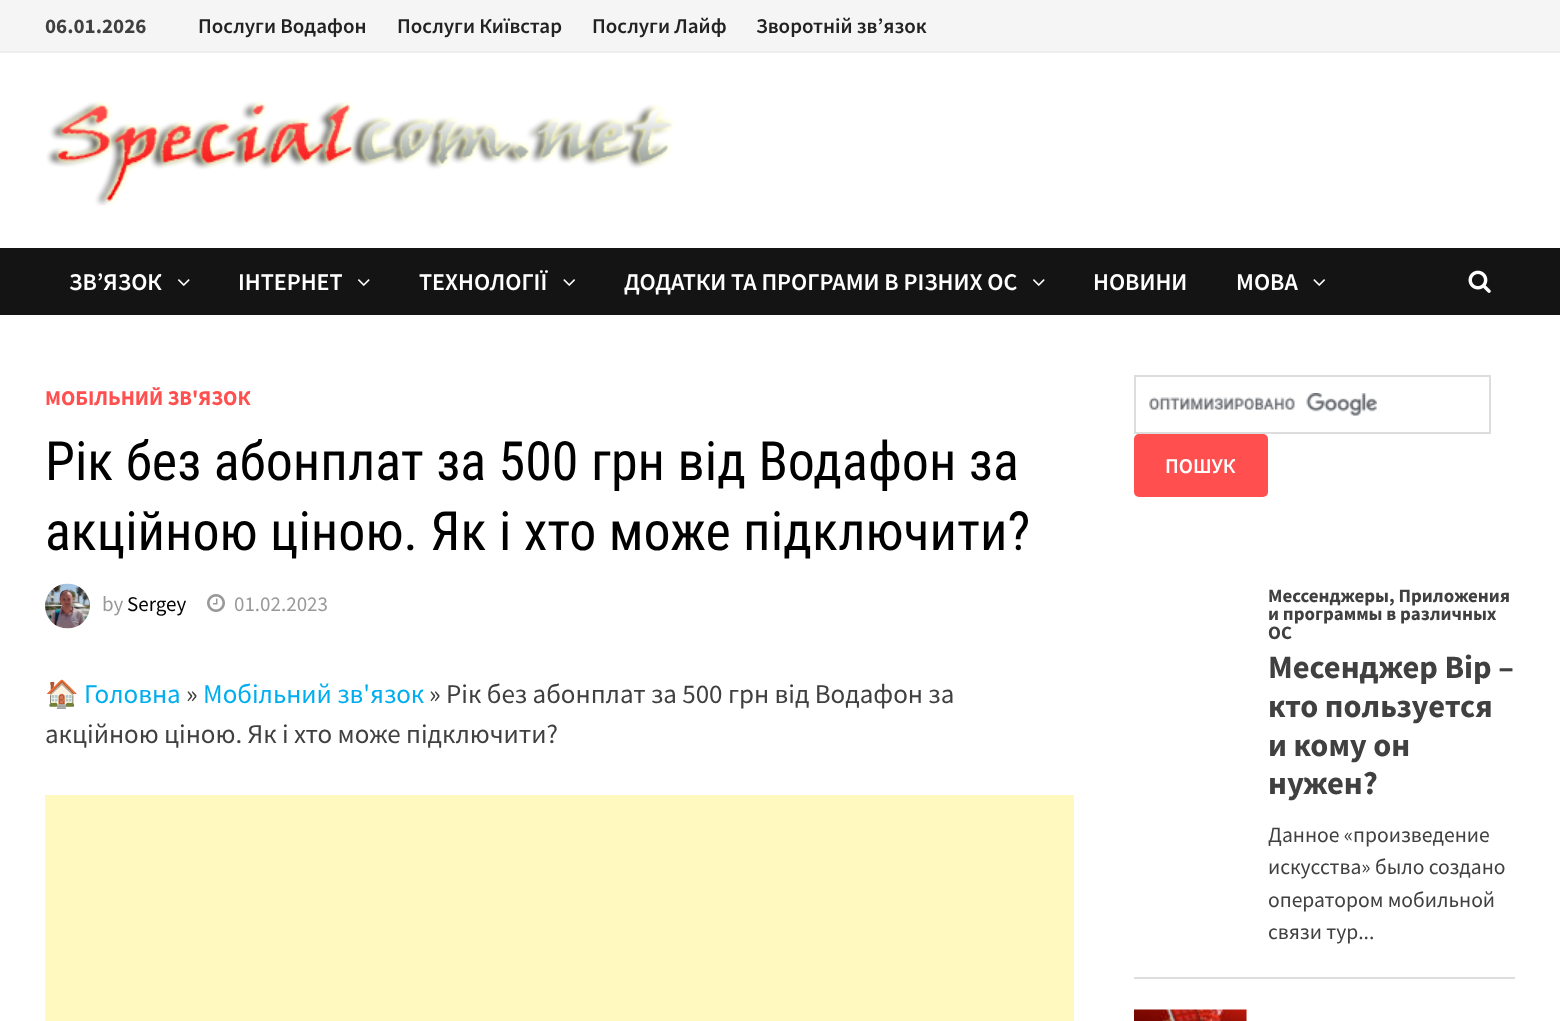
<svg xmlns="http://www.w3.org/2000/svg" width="1560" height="1021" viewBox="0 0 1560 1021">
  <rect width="100%" height="100%" fill="#fff"/>
  <path d="M0 0h1560v51H0z" fill="#f5f5f5"/>
  <path d="M0 51h1560v2H0z" fill="#eee"/>
  <image x="46" y="101" width="629" height="105" href="img/1.png"/>
  <path d="M0 248h1560v67H0z" fill="#141414"/>
  <image x="178" y="279" width="12" height="7" href="img/2.png"/>
  <image x="358" y="279" width="12" height="7" href="img/2.png"/>
  <image x="563" y="279" width="12" height="7" href="img/3.png"/>
  <image x="1033" y="279" width="12" height="7" href="img/2.png"/>
  <image x="1313" y="279" width="12" height="7" href="img/3.png"/>
  <image x="1468" y="270" width="23" height="23" href="img/4.png"/>
  <image x="45" y="583" width="45" height="46" href="img/5.png"/>
  <image x="207" y="594" width="18" height="18" href="img/6.png"/>
  <path d="M45 795h1029v226H45z" fill="#fff9c0"/>
  <image x="1149" y="393" width="228" height="23" href="img/7.png"/>
  <path d="M1135 376h355v57H1135z" fill="none" stroke="#ddd" stroke-width="2"/>
  <rect x="1134" y="434" width="134" height="63" rx="5" fill="#ff4f4f"/>
  <path d="M1134 977h381v2H1134z" fill="#ddd"/>
  <path d="M1246 1010h1v11H1246z" fill="#f0f0f0"/>
  <image x="1134" y="1009" width="113" height="12" href="img/8.png"/>
  <text x="45" y="33" font-family="Source Sans Pro" font-size="21" font-weight="bold" fill="#404040">06.01.2026</text>
  <g font-family="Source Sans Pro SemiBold" font-size="21" font-weight="600" fill="#222">
    <text x="198" y="33">Послуги Водафон</text>
    <text x="397" y="33">Послуги Київстар</text>
    <text x="592" y="33">Послуги Лайф</text>
    <text x="756" y="33">Зворотній зв’язок</text>
  </g>
  <g font-family="Source Sans Pro SemiBold" font-size="24" font-weight="600" fill="#fff">
    <text x="69" y="290">ЗВ’ЯЗОК</text>
    <text x="238" y="290">ІНТЕРНЕТ</text>
    <text x="419" y="290">ТЕХНОЛОГІЇ</text>
    <text x="624" y="290">ДОДАТКИ ТА ПРОГРАМИ В РІЗНИХ ОС</text>
    <text x="1093" y="290">НОВИНИ</text>
    <text x="1236" y="290">МОВА</text>
  </g>
  <text x="45" y="405" font-family="Source Sans Pro" font-size="21" font-weight="bold" fill="#ff4f4f">МОБІЛЬНИЙ ЗВ'ЯЗОК</text>
  <g font-family="Roboto Condensed" font-size="54" fill="#000">
    <text x="45" y="480">Рік без абонплат за 500 грн від Водафон за</text>
    <text x="45" y="550">акційною ціною. Як і хто може підключити?</text>
  </g>
  <text x="102" y="611" font-family="Source Sans Pro" font-size="21" fill="#999">by</text>
  <text x="127" y="611" font-family="Source Sans Pro" font-size="21" fill="#000">Sergey</text>
  <text x="234" y="611" font-family="Source Sans Pro" font-size="21" fill="#999">01.02.2023</text>
  <text x="45" y="703" font-family="Noto Color Emoji" font-size="27" fill="#00aeef">🏠</text>
  <text x="84" y="703" font-family="Source Sans Pro" font-size="27" fill="#00aeef">Головна</text>
  <text x="186" y="703" font-family="Source Sans Pro" font-size="27" fill="#404040">»</text>
  <text x="203" y="703" font-family="Source Sans Pro" font-size="27" fill="#00aeef">Мобільний зв'язок</text>
  <g font-family="Source Sans Pro" font-size="27" fill="#404040">
    <text x="429" y="703">» Рік без абонплат за 500 грн від Водафон за</text>
    <text x="45" y="743">акційною ціною. Як і хто може підключити?</text>
  </g>
  <text x="1165" y="473" font-family="Source Sans Pro SemiBold" font-size="21" font-weight="600" fill="#fff">ПОШУК</text>
  <g font-family="Source Sans Pro" font-size="18.9" font-weight="bold" fill="#404040">
    <text x="1268" y="602">Мессенджеры, Приложения</text>
    <text x="1268" y="620">и программы в различных</text>
    <text x="1268" y="639">ОС</text>
  </g>
  <g font-family="Source Sans Pro" font-size="32.5" font-weight="bold" fill="#404040">
    <text x="1268" y="678">Месенджер Bip –</text>
    <text x="1268" y="717">кто пользуется</text>
    <text x="1268" y="756">и кому он</text>
    <text x="1268" y="794">нужен?</text>
  </g>
  <g font-family="Source Sans Pro" font-size="21.6" fill="#404040">
    <text x="1268" y="842">Данное «произведение</text>
    <text x="1268" y="874">искусства» было создано</text>
    <text x="1268" y="907">оператором мобильной</text>
    <text x="1268" y="939">связи тур...</text>
  </g>
</svg>
